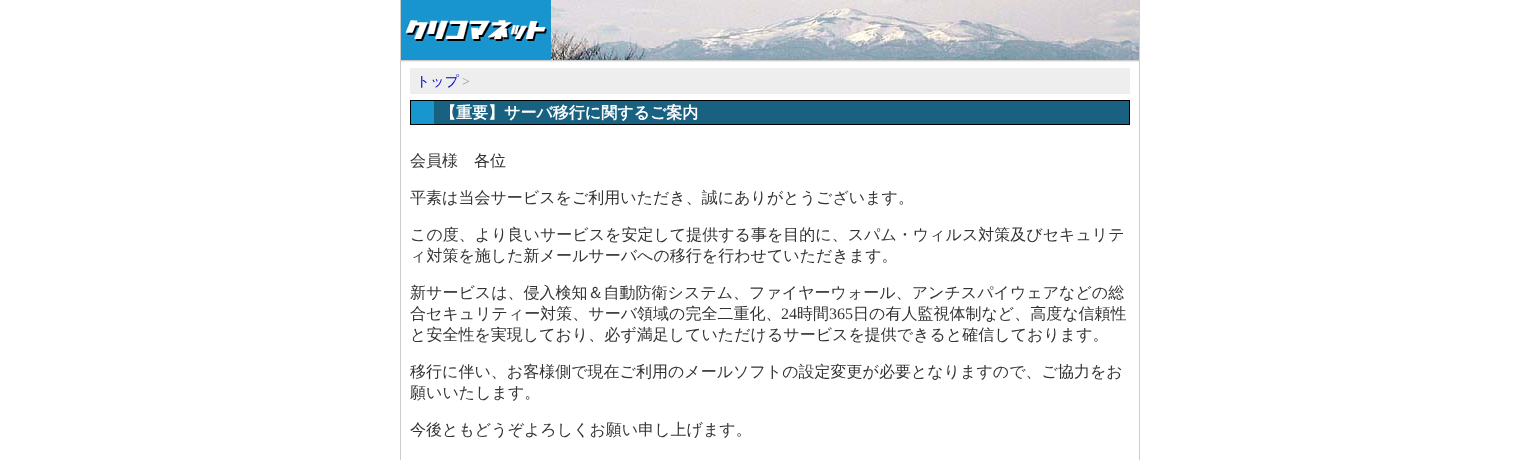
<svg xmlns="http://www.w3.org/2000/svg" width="1539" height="460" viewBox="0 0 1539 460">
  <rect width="100%" height="100%" fill="#fff"/>
  <path d="M400 0h1v60H400z" fill="#ccc"/>
  <image x="401" y="0" width="150" height="60" href="img/1.png"/>
  <image x="551" y="0" width="588" height="60" href="img/2.png"/>
  <path d="M1139 0h1v60H1139z" fill="#ccc"/>
  <path d="M400 60h740v1H400z" fill="#ccc"/>
  <path d="M400 61h740v1H400z" fill="#eee"/>
  <path d="M400 61h1v399H400z" fill="#ccc"/>
  <path d="M1139 61h1v399H1139z" fill="#ccc"/>
  <path d="M410 68h720v26H410z" fill="#eee"/>
  <path d="M410 100h720v1H410z" fill="#000"/>
  <path d="M434 101h695v23H434z" fill="#186181"/>
  <path d="M410 101h1v23H410z" fill="#000"/>
  <path d="M411 101h23v23H411z" fill="#1896ce"/>
  <path d="M1129 101h1v23H1129z" fill="#000"/>
  <path d="M410 124h720v1H410z" fill="#000"/>
  <text x="416" y="86" font-family="WenQuanYi Zen Hei" font-size="14" font-weight="500" fill="#00c">トップ</text>
  <text x="462" y="86" font-family="Liberation Serif" font-size="14" fill="#999">&gt;</text>
  <text x="440" y="118" font-family="WenQuanYi Zen Hei" font-size="16" font-weight="bold" fill="#fff">【重要】サーバ移行に関するご案内</text>
  <g font-family="WenQuanYi Zen Hei" font-size="16" font-weight="500" fill="#333">
    <text x="410" y="166">会員様　各位</text>
    <text x="410" y="203">平素は当会サービスをご利用いただき、誠にありがとうございます。</text>
    <text x="410" y="240">この度、より良いサービスを安定して提供する事を目的に、スパム・ウィルス対策及びセキュリテ</text>
    <text x="410" y="261">ィ対策を施した新メールサーバへの移行を行わせていただきます。</text>
    <text x="410" y="298">新サービスは、侵入検知＆自動防衛システム、ファイヤーウォール、アンチスパイウェアなどの総</text>
    <text x="410" y="319">合セキュリティー対策、サーバ領域の完全二重化、</text>
  </g>
  <text x="781" y="319" font-family="Liberation Serif" font-size="16" fill="#333">24</text>
  <text x="797" y="319" font-family="WenQuanYi Zen Hei" font-size="16" font-weight="500" fill="#333">時間</text>
  <text x="829" y="319" font-family="Liberation Serif" font-size="16" fill="#333">365</text>
  <g font-family="WenQuanYi Zen Hei" font-size="16" font-weight="500" fill="#333">
    <text x="853" y="319">日の有人監視体制など、高度な信頼性</text>
    <text x="410" y="340">と安全性を実現しており、必ず満足していただけるサービスを提供できると確信しております。</text>
    <text x="410" y="377">移行に伴い、お客様側で現在ご利用のメールソフトの設定変更が必要となりますので、ご協力をお</text>
    <text x="410" y="398">願いいたします。</text>
    <text x="410" y="435">今後ともどうぞよろしくお願い申し上げます。</text>
  </g>
</svg>
